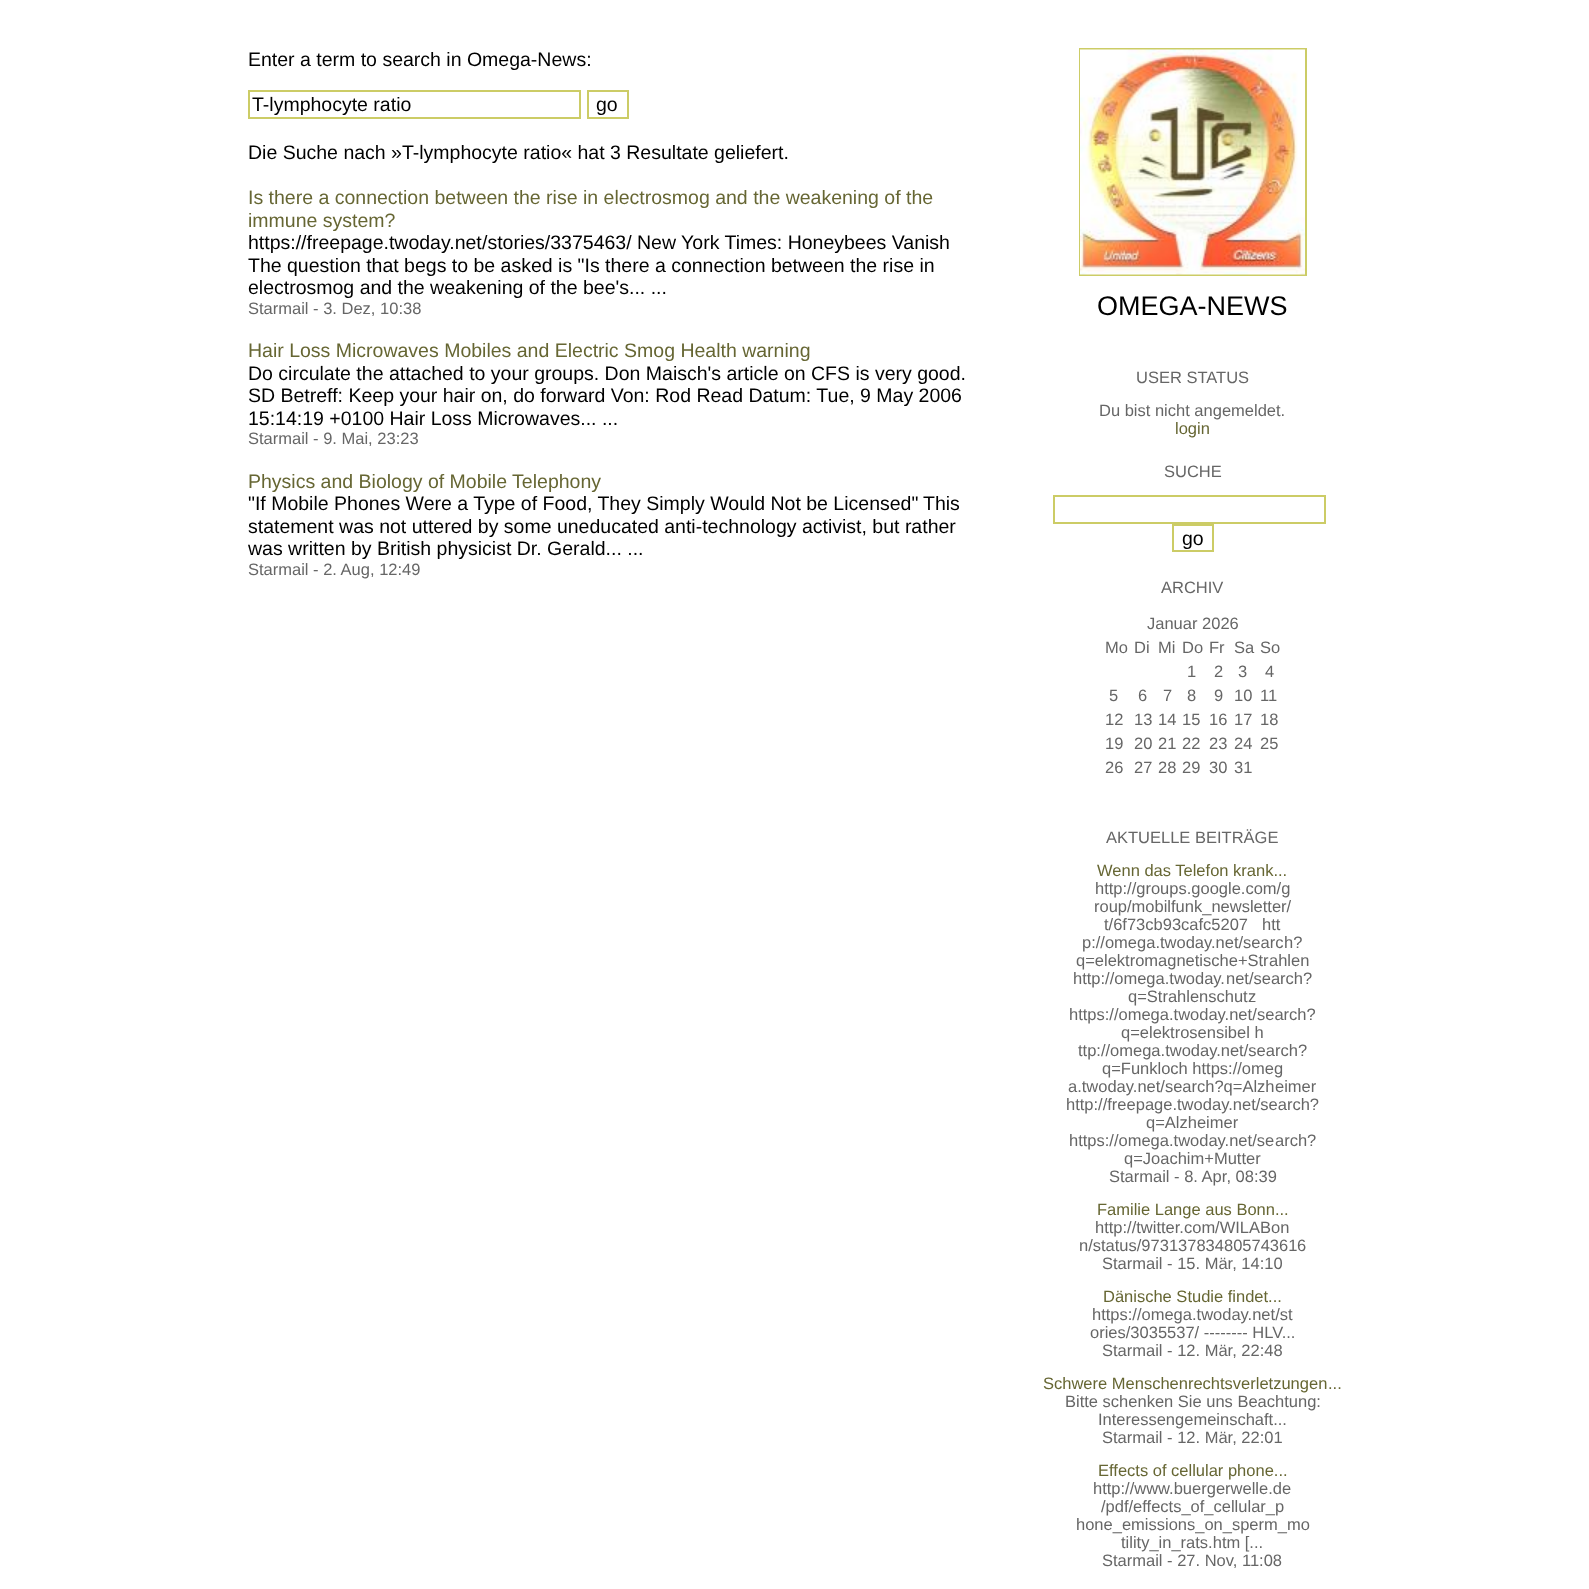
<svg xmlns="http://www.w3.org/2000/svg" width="1589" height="1589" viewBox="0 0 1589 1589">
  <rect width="100%" height="100%" fill="#fff"/>
  <path d="M249 91h331v27H249z" fill="none" stroke="#cc6" stroke-width="2"/>
  <path d="M588 91h40v27H588z" fill="none" stroke="#cc6" stroke-width="2"/>
  <path d="M1080 49h226v226H1080z" fill="none" stroke="#cc6" stroke-width="2"/>
  <image x="1080" y="49" width="225" height="226" href="img/1.png"/>
  <path d="M1054 496h271v27H1054z" fill="none" stroke="#cc6" stroke-width="2"/>
  <path d="M1173 525h40v26H1173z" fill="none" stroke="#cc6" stroke-width="2"/>
  <g font-family="Liberation Sans" font-size="19.5" fill="#000">
    <text x="248" y="66">Enter a term to search in Omega-News:</text>
    <text x="252" y="111">T-lymphocyte ratio</text>
    <text x="596" y="111">go</text>
    <text x="248" y="159">Die Suche nach »T-lymphocyte ratio« hat 3 Resultate geliefert.</text>
  </g>
  <g font-family="Liberation Sans" font-size="19.5" fill="#663">
    <text x="248" y="204">Is there a connection between the rise in electrosmog and the weakening of the</text>
    <text x="248" y="227">immune system?</text>
  </g>
  <g font-family="Liberation Sans" font-size="19.5" fill="#000">
    <text x="248" y="249">https://freepage.twoday.net</text>
    <text x="482" y="249">/stories/3375463/ New York Times: Honeybees Vanish</text>
    <text x="248" y="272">The question that begs to be asked is "Is there a connection between the rise in</text>
    <text x="248" y="294">electrosmog and the weakening of the bee's... ...</text>
  </g>
  <text x="248" y="314" font-family="Liberation Sans" font-size="16.5" fill="#666">Starmail - 3. Dez, 10:38</text>
  <text x="248" y="357" font-family="Liberation Sans" font-size="19.5" fill="#663">Hair Loss Microwaves Mobiles and Electric Smog Health warning</text>
  <g font-family="Liberation Sans" font-size="19.5" fill="#000">
    <text x="248" y="380">Do circulate the attached to your groups. Don Maisch's article on CFS is very good.</text>
    <text x="248" y="402">SD Betreff: Keep your hair on, do forward Von: Rod Read Datum: Tue, 9 May 2006</text>
    <text x="248" y="425">15:14:19 +0100 Hair Loss Microwaves... ...</text>
  </g>
  <text x="248" y="444" font-family="Liberation Sans" font-size="16.5" fill="#666">Starmail - 9. Mai, 23:23</text>
  <text x="248" y="488" font-family="Liberation Sans" font-size="19.5" fill="#663">Physics and Biology of Mobile Telephony</text>
  <g font-family="Liberation Sans" font-size="19.5" fill="#000">
    <text x="248" y="510">"If Mobile Phones Were a Type of Food, They Simply Would Not be Licensed"</text>
    <text x="923" y="510">This</text>
    <text x="248" y="533">statement was not uttered by some uneducated anti-technology activist, but rather</text>
    <text x="248" y="555">was written by British physicist Dr. Gerald... ...</text>
  </g>
  <text x="248" y="575" font-family="Liberation Sans" font-size="16.5" fill="#666">Starmail - 2. Aug, 12:49</text>
  <text x="1097" y="315" font-family="Liberation Sans" font-size="27" fill="#000">OMEGA-NEWS</text>
  <g font-family="Liberation Sans" font-size="16.5" fill="#666">
    <text x="1136" y="383">USER STATUS</text>
    <text x="1099" y="416">Du bist nicht angemeldet.</text>
  </g>
  <text x="1175" y="434" font-family="Liberation Sans" font-size="16.5" fill="#663">login</text>
  <text x="1164" y="477" font-family="Liberation Sans" font-size="16.5" fill="#666">SUCHE</text>
  <text x="1182" y="545" font-family="Liberation Sans" font-size="19.5" fill="#000">go</text>
  <g font-family="Liberation Sans" font-size="16.5" fill="#666">
    <text x="1161" y="593">ARCHIV</text>
    <text x="1147" y="629">Januar 2026</text>
    <text x="1105" y="653">Mo</text>
    <text x="1134" y="653">Di</text>
    <text x="1158" y="653">Mi</text>
    <text x="1182" y="653">Do</text>
    <text x="1209" y="653">Fr</text>
    <text x="1234" y="653">Sa</text>
    <text x="1260" y="653">So</text>
    <text x="1187" y="677">1</text>
    <text x="1214" y="677">2</text>
    <text x="1238" y="677">3</text>
    <text x="1265" y="677">4</text>
    <text x="1109" y="701">5</text>
    <text x="1138" y="701">6</text>
    <text x="1163" y="701">7</text>
    <text x="1187" y="701">8</text>
    <text x="1214" y="701">9</text>
    <text x="1234" y="701">10</text>
    <text x="1260" y="701">11</text>
    <text x="1105" y="725">12</text>
    <text x="1134" y="725">13</text>
    <text x="1158" y="725">14</text>
    <text x="1182" y="725">15</text>
    <text x="1209" y="725">16</text>
    <text x="1234" y="725">17</text>
    <text x="1260" y="725">18</text>
    <text x="1105" y="749">19</text>
    <text x="1134" y="749">20</text>
    <text x="1158" y="749">21</text>
    <text x="1182" y="749">22</text>
    <text x="1209" y="749">23</text>
    <text x="1234" y="749">24</text>
    <text x="1260" y="749">25</text>
    <text x="1105" y="773">26</text>
    <text x="1134" y="773">27</text>
    <text x="1158" y="773">28</text>
    <text x="1182" y="773">29</text>
    <text x="1209" y="773">30</text>
    <text x="1234" y="773">31</text>
    <text x="1106" y="843">AKTUELLE BEITRÄGE</text>
  </g>
  <text x="1097" y="876" font-family="Liberation Sans" font-size="16.5" fill="#663">Wenn das Telefon krank...</text>
  <g font-family="Liberation Sans" font-size="16.5" fill="#666">
    <text x="1095" y="894">http://groups.google.com/g</text>
    <text x="1094" y="912">roup/mobilfunk_newsletter/</text>
    <text x="1104" y="930">t/6f73cb93cafc5207</text>
    <text x="1262" y="930">htt</text>
    <text x="1082" y="948">p://omega.twoday.net/searc</text>
    <text x="1284" y="948">h?</text>
    <text x="1076" y="966">q=elektromagnetische+Str</text>
    <text x="1269" y="966">ahlen</text>
    <text x="1073" y="984">http://omega.twoday.</text>
    <text x="1226" y="984">net/search?</text>
    <text x="1128" y="1002">q=Strahlenschut</text>
    <text x="1248" y="1002">z</text>
    <text x="1069" y="1020">https://omega.twoday.net/</text>
    <text x="1257" y="1020">search?</text>
    <text x="1121" y="1038">q=elektrosensibel h</text>
    <text x="1078" y="1056">ttp://omega.twoday.net/sea</text>
    <text x="1275" y="1056">rch?</text>
    <text x="1102" y="1074">q=Funkloch https://omeg</text>
    <text x="1068" y="1092">a.twoday.net/search?q=Alzh</text>
    <text x="1275" y="1092">eimer</text>
    <text x="1066" y="1110">http://freepage.twod</text>
    <text x="1212" y="1110">ay.net/search?</text>
    <text x="1146" y="1128">q=Alzheimer</text>
    <text x="1069" y="1146">https://omega.twoday.net/se</text>
    <text x="1275" y="1146">arch?</text>
    <text x="1124" y="1164">q=Joachim+Mutter</text>
    <text x="1109" y="1182">Starmail - 8. Apr, 08:39</text>
  </g>
  <text x="1097" y="1215" font-family="Liberation Sans" font-size="16.5" fill="#663">Familie Lange aus Bonn...</text>
  <g font-family="Liberation Sans" font-size="16.5" fill="#666">
    <text x="1095" y="1233">http://twitter.com/WILABon</text>
    <text x="1079" y="1251">n/status/97313783480574361</text>
    <text x="1297" y="1251">6</text>
    <text x="1102" y="1269">Starmail - 15. Mär, 14:10</text>
  </g>
  <text x="1103" y="1302" font-family="Liberation Sans" font-size="16.5" fill="#663">Dänische Studie findet...</text>
  <g font-family="Liberation Sans" font-size="16.5" fill="#666">
    <text x="1092" y="1320">https://omega.twoday.net/st</text>
    <text x="1090" y="1338">ories/3035537/ -------- HLV...</text>
    <text x="1102" y="1356">Starmail - 12. Mär, 22:48</text>
  </g>
  <g font-family="Liberation Sans" font-size="16.5" fill="#663">
    <text x="1043" y="1389">Schwere Menschenrechtsverletzungen</text>
    <text x="1328" y="1389">...</text>
  </g>
  <g font-family="Liberation Sans" font-size="16.5" fill="#666">
    <text x="1065" y="1407">Bitte schenken Sie uns Beachtung:</text>
    <text x="1098" y="1425">Interessengemeinschaft...</text>
    <text x="1102" y="1443">Starmail - 12. Mär, 22:01</text>
  </g>
  <text x="1098" y="1476" font-family="Liberation Sans" font-size="16.5" fill="#663">Effects of cellular phone...</text>
  <g font-family="Liberation Sans" font-size="16.5" fill="#666">
    <text x="1093" y="1494">http://www.buergerwelle.de</text>
    <text x="1101" y="1512">/pdf/effects_of_cellular_p</text>
    <text x="1076" y="1530">hone_emissions_on_sperm_mo</text>
    <text x="1121" y="1548">tility_in_rats.htm [...</text>
    <text x="1102" y="1566">Starmail - 27. Nov, 11:08</text>
  </g>
</svg>
